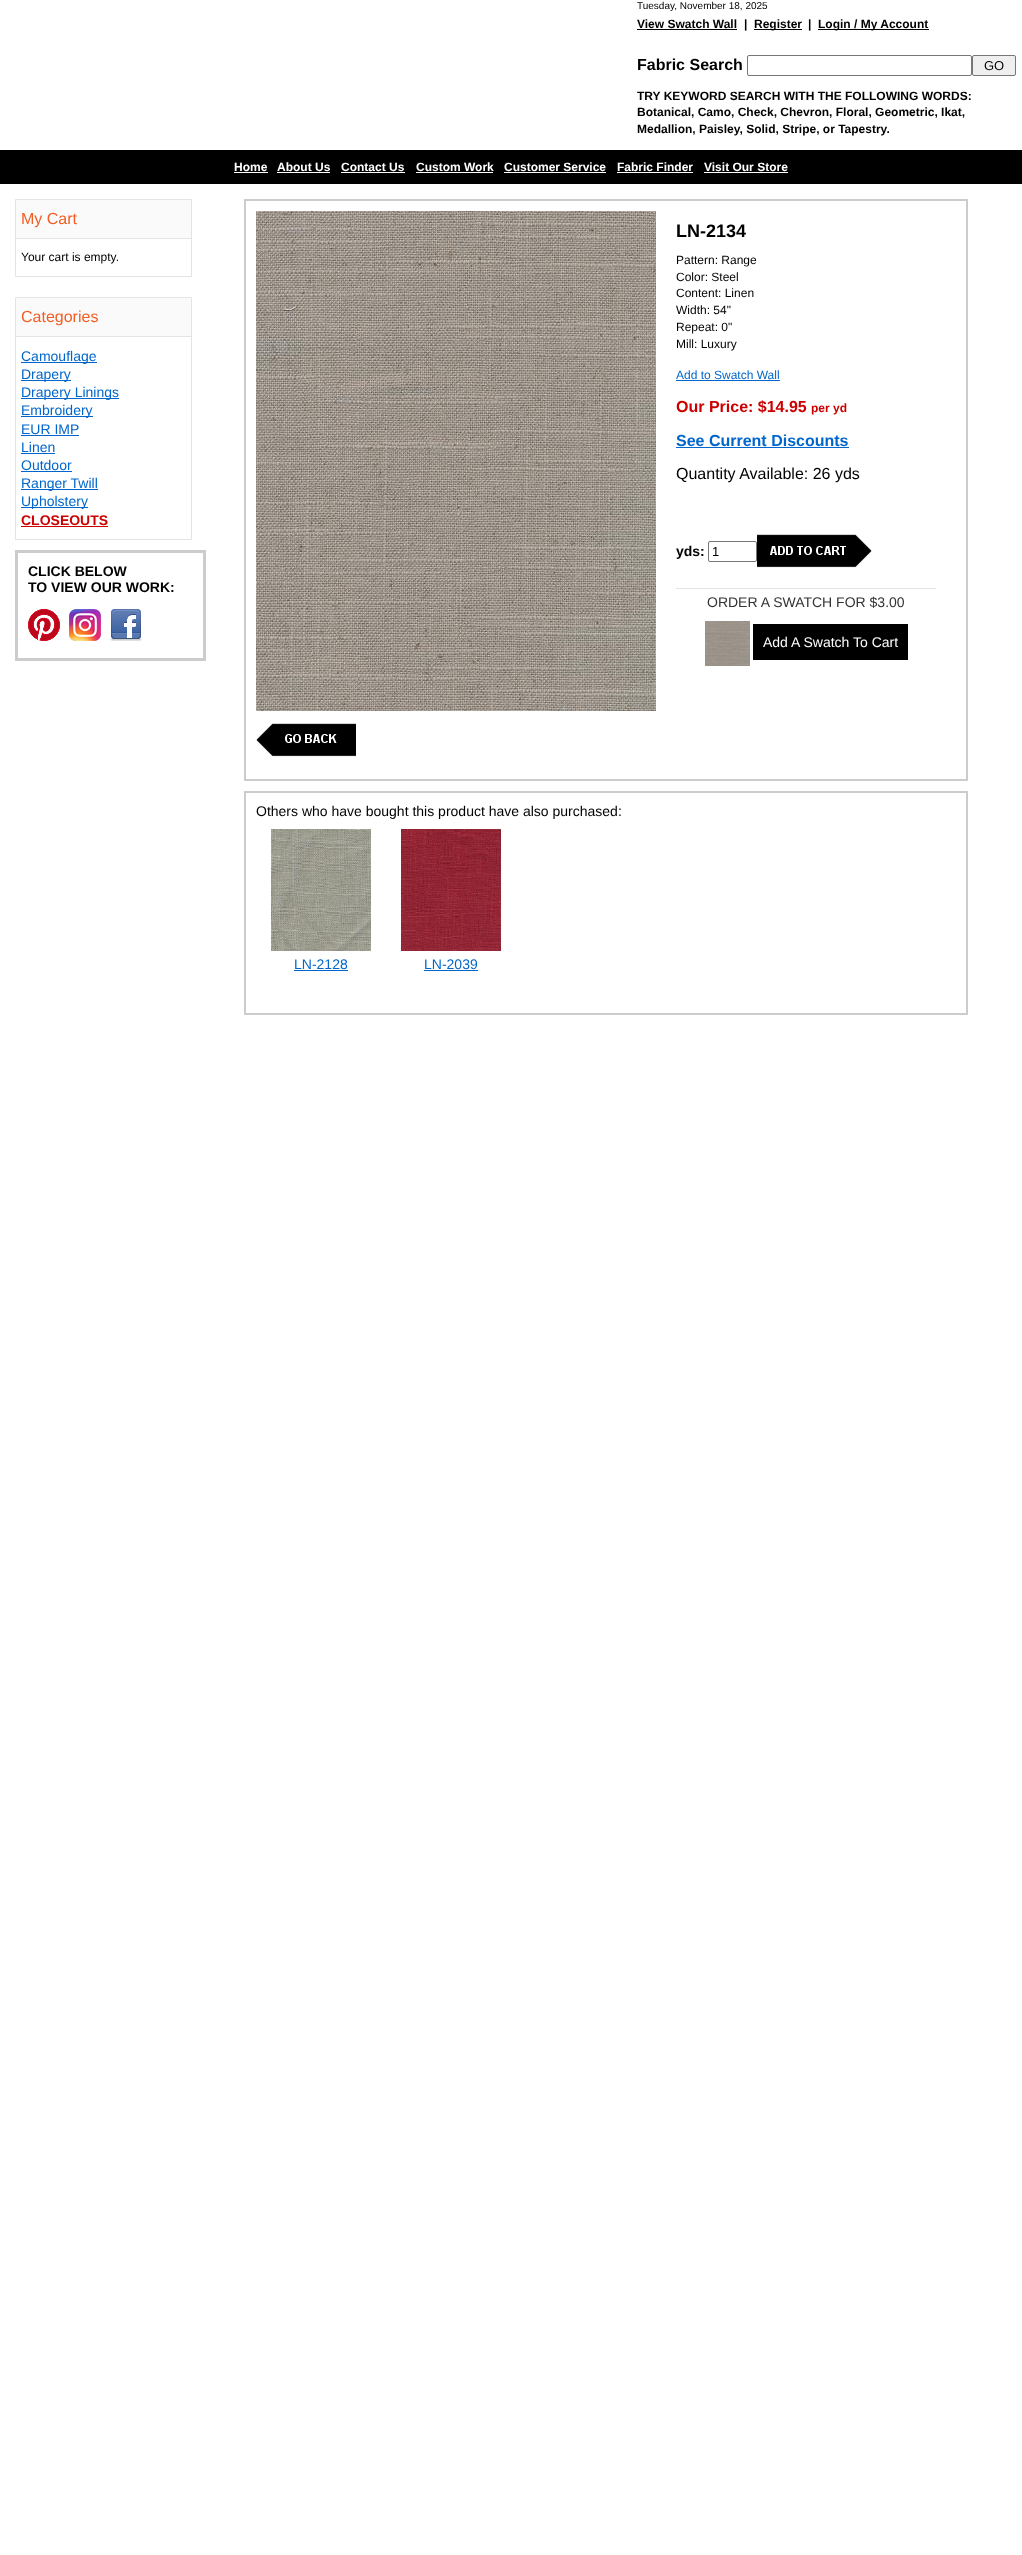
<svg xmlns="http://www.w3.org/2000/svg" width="1022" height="2555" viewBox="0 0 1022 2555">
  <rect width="100%" height="100%" fill="#fff"/>
  <path d="M637 29h100v1H637z" fill="#000"/>
  <path d="M754 29h48v1H754z" fill="#000"/>
  <path d="M818 29h111v1H818z" fill="#000"/>
  <rect x="747.5" y="55.5" width="224" height="20" rx="1.5" fill="none" stroke="#767676"/>
  <rect x="972.5" y="55.5" width="43" height="20" rx="1.5" fill="#efefef" stroke="#767676"/>
  <path d="M0 150h1022v34H0z" fill="#000"/>
  <path d="M234 172h34v1H234z" fill="#fff"/>
  <path d="M277 172h53v1H277z" fill="#fff"/>
  <path d="M341 172h64v1H341z" fill="#fff"/>
  <path d="M416 172h77v1H416z" fill="#fff"/>
  <path d="M504 172h102v1H504z" fill="#fff"/>
  <path d="M617 172h76v1H617z" fill="#fff"/>
  <path d="M704 172h84v1H704z" fill="#fff"/>
  <path d="M15.5 199.5h176v77H15.5z" fill="none" stroke="#e4e4e4"/>
  <path d="M16 200h175v38H16z" fill="#fafafa"/>
  <path d="M16 238h175v1H16z" fill="#e4e4e4"/>
  <path d="M15.5 297.5h176v242H15.5z" fill="none" stroke="#e4e4e4"/>
  <path d="M16 298h175v38H16z" fill="#fafafa"/>
  <path d="M16 336h175v1H16z" fill="#e4e4e4"/>
  <path d="M21 362h76v1H21z" fill="#06c"/>
  <path d="M21 380h50v1H21z" fill="#06c"/>
  <path d="M21 398h98v1H21z" fill="#06c"/>
  <path d="M21 416h72v1H21z" fill="#06c"/>
  <path d="M21 435h58v1H21z" fill="#06c"/>
  <path d="M21 453h34v1H21z" fill="#06c"/>
  <path d="M21 471h51v1H21z" fill="#06c"/>
  <path d="M21 489h77v1H21z" fill="#06c"/>
  <path d="M21 507h67v1H21z" fill="#06c"/>
  <path d="M21 526h87v1H21z" fill="#c00"/>
  <path d="M16.5 551.5h188v108H16.5z" fill="none" stroke="#ccc" stroke-width="3"/>
  <image x="28" y="609" width="32" height="32" href="img/1.png"/>
  <image x="69" y="609" width="32" height="32" href="img/2.png"/>
  <image x="110" y="609" width="32" height="32" href="img/3.png"/>
  <path d="M245 200h722v580H245z" fill="none" stroke="#ccc" stroke-width="2"/>
  <image x="256" y="211" width="400" height="500" href="img/4.png"/>
  <image x="256" y="723" width="100" height="34" href="img/5.png"/>
  <path d="M676 380h104v1H676z" fill="#06c"/>
  <path d="M676 447h173v1H676z" fill="#06c"/>
  <rect x="708.5" y="541.5" width="48" height="20" rx="1.5" fill="none" stroke="#767676"/>
  <image x="757" y="534" width="115" height="34" href="img/6.png"/>
  <path d="M676 588h260v1H676z" fill="#e4e4e4"/>
  <image x="705" y="621" width="45" height="45" href="img/7.png"/>
  <path d="M753 624h155v36H753z" fill="#000"/>
  <path d="M245 792h722v222H245z" fill="none" stroke="#ccc" stroke-width="2"/>
  <image x="271" y="829" width="100" height="122" href="img/8.png"/>
  <path d="M294 970h54v1H294z" fill="#06c"/>
  <image x="401" y="829" width="100" height="122" href="img/9.png"/>
  <path d="M424 970h54v1H424z" fill="#06c"/>
  <text x="637" y="9" font-family="Liberation Sans" font-size="10" fill="#000">Tuesday, November 18, 2025</text>
  <g font-family="Liberation Sans" font-size="12" font-weight="bold" fill="#000">
    <text x="637" y="28">View Swatch Wall</text>
    <text x="744" y="28">|</text>
    <text x="754" y="28">Register</text>
    <text x="808" y="28">|</text>
    <text x="818" y="28">Login / My Account</text>
  </g>
  <text x="637" y="70" font-family="Liberation Sans" font-size="16" font-weight="bold" fill="#000">Fabric Search</text>
  <text x="984" y="70" font-family="Liberation Sans" font-size="13" fill="#000">GO</text>
  <g font-family="Liberation Sans" font-size="12" font-weight="bold" fill="#000">
    <text x="637" y="100">TRY KEYWORD SEARCH WITH THE FOLLOWING WORDS:</text>
    <text x="637" y="116">Botanical, Camo, Check, Chevron, Floral, Geometric, Ikat,</text>
    <text x="637" y="133">Medallion, Paisley, Solid, Stripe, or Tapestry.</text>
  </g>
  <g font-family="Liberation Sans" font-size="12" font-weight="bold" fill="#fff">
    <text x="234" y="171">Home</text>
    <text x="277" y="171">About Us</text>
    <text x="341" y="171">Contact Us</text>
    <text x="416" y="171">Custom Work</text>
    <text x="504" y="171">Customer Service</text>
    <text x="617" y="171">Fabric Finder</text>
    <text x="704" y="171">Visit Our Store</text>
  </g>
  <text x="21" y="224" font-family="Liberation Sans" font-size="16" fill="#f25d23">My Cart</text>
  <text x="21" y="261" font-family="Liberation Sans" font-size="12" fill="#000">Your cart is empty.</text>
  <text x="21" y="322" font-family="Liberation Sans" font-size="16" fill="#f25d23">Categories</text>
  <g font-family="Liberation Sans" font-size="14" fill="#06c">
    <text x="21" y="361">Camouflage</text>
    <text x="21" y="379">Drapery</text>
    <text x="21" y="397">Drapery Linings</text>
    <text x="21" y="415">Embroidery</text>
    <text x="21" y="434">EUR IMP</text>
    <text x="21" y="452">Linen</text>
    <text x="21" y="470">Outdoor</text>
    <text x="21" y="488">Ranger Twill</text>
    <text x="21" y="506">Upholstery</text>
  </g>
  <text x="21" y="525" font-family="Liberation Sans" font-size="14" font-weight="bold" fill="#c00">CLOSEOUTS</text>
  <g font-family="Liberation Sans" font-size="14" font-weight="bold" fill="#000">
    <text x="28" y="576">CLICK BELOW</text>
    <text x="28" y="592">TO VIEW OUR WORK:</text>
  </g>
  <text x="676" y="237" font-family="Liberation Sans" font-size="18" font-weight="bold" fill="#000">LN-2134</text>
  <g font-family="Liberation Sans" font-size="12" fill="#000">
    <text x="676" y="264">Pattern: Range</text>
    <text x="676" y="281">Color: Steel</text>
    <text x="676" y="297">Content: Linen</text>
    <text x="676" y="314">Width: 54"</text>
    <text x="676" y="331">Repeat: 0"</text>
    <text x="676" y="348">Mill: Luxury</text>
  </g>
  <text x="676" y="379" font-family="Liberation Sans" font-size="12" fill="#06c">Add to Swatch Wall</text>
  <text x="676" y="412" font-family="Liberation Sans" font-size="16" font-weight="bold" fill="#c00">Our Price: $14.95</text>
  <text x="811" y="412" font-family="Liberation Sans" font-size="12" font-weight="bold" fill="#c00">per yd</text>
  <text x="676" y="446" font-family="Liberation Sans" font-size="16" font-weight="bold" fill="#06c">See Current Discounts</text>
  <text x="676" y="479" font-family="Liberation Sans" font-size="16" fill="#000">Quantity Available: 26 yds</text>
  <text x="676" y="556" font-family="Liberation Sans" font-size="14" font-weight="bold" fill="#000">yds:</text>
  <text x="712" y="556" font-family="Liberation Sans" font-size="13" fill="#000">1</text>
  <text x="707" y="607" font-family="Liberation Sans" font-size="14" fill="#333">ORDER A SWATCH FOR $3.00</text>
  <text x="763" y="647" font-family="Liberation Sans" font-size="14" fill="#fff">Add A Swatch To Cart</text>
  <text x="256" y="816" font-family="Liberation Sans" font-size="14" fill="#000">Others who have bought this product have also purchased:</text>
  <g font-family="Liberation Sans" font-size="14" fill="#06c">
    <text x="294" y="969">LN-2128</text>
    <text x="424" y="969">LN-2039</text>
  </g>
</svg>
